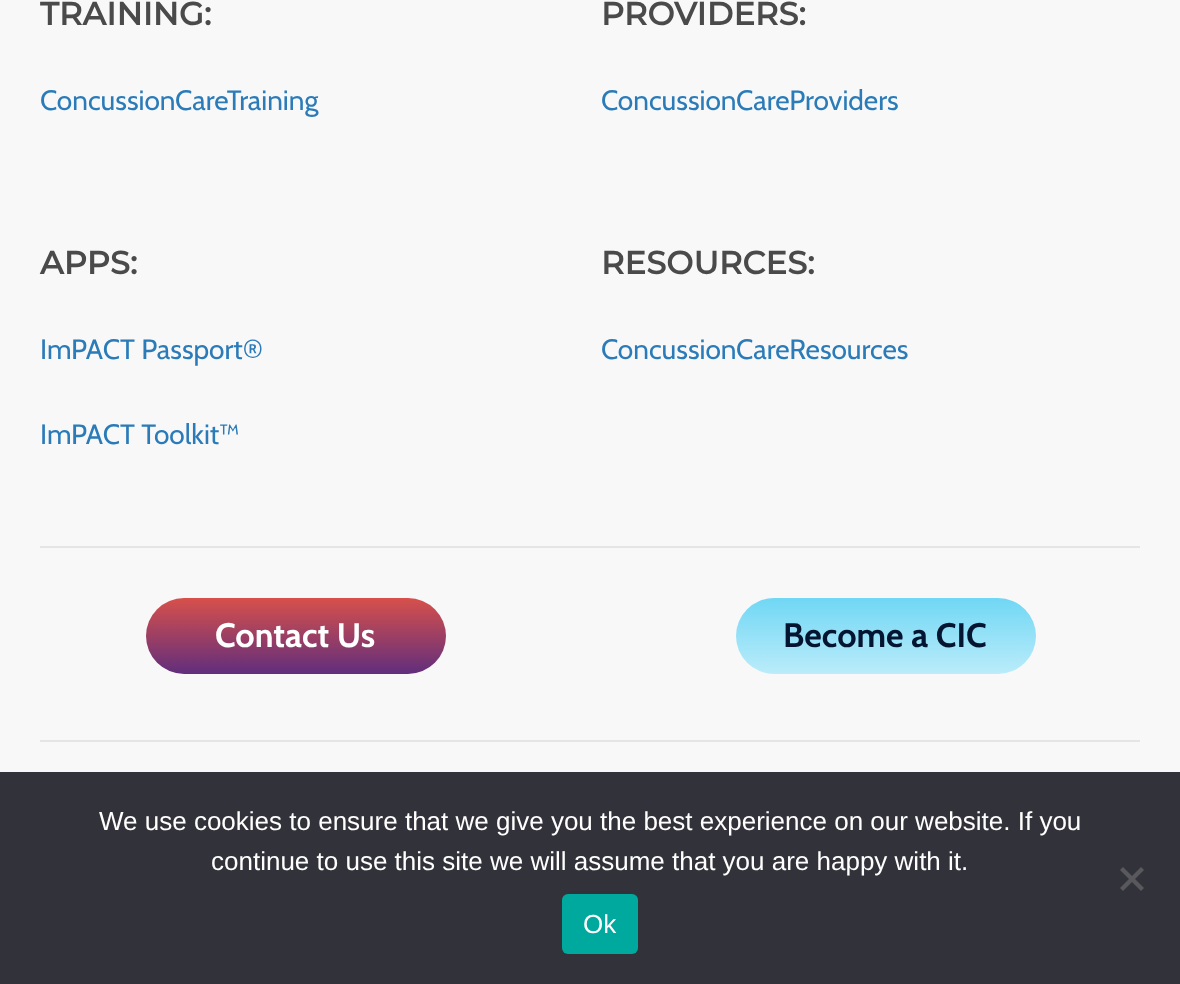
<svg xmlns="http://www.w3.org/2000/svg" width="1180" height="984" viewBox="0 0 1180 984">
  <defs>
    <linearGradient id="g1" gradientUnits="userSpaceOnUse" x1="296" y1="598" x2="296" y2="674"><stop offset="0" stop-color="#d7504b"/><stop offset="1" stop-color="#612e7c"/></linearGradient>
    <linearGradient id="g2" gradientUnits="userSpaceOnUse" x1="886" y1="598" x2="886" y2="674"><stop offset="0" stop-color="#70d7f4"/><stop offset="1" stop-color="#bbecfa"/></linearGradient>
  </defs>
  <rect width="100%" height="100%" fill="#f8f8f8"/>
  <path d="M40 546h1100v2H40z" fill="#e5e5e5"/>
  <rect x="146" y="598" width="300" height="76" rx="38" fill="url(#g1)"/>
  <rect x="736" y="598" width="300" height="76" rx="38" fill="url(#g2)"/>
  <path d="M40 740h1100v2H40z" fill="#e5e5e5"/>
  <path d="M0 772h1180v212H0z" fill="#32323a"/>
  <path d="M1141 867L1144 870L1123 891L1120 888Z" fill="#59595d"/>
  <path d="M1120 870L1123 867L1144 888L1141 891Z" fill="#59595d"/>
  <rect x="562" y="894" width="76" height="60" rx="6" fill="#00a99d"/>
  <text x="40" y="25" font-family="Montserrat" font-size="32" font-weight="bold" letter-spacing="0.25" fill="#4a4a4a">TRAINING:</text>
  <text x="40" y="110" font-family="Cabin" font-size="28" fill="#2b7bb9">ConcussionCareTraining</text>
  <text x="40" y="274" font-family="Montserrat" font-size="32" font-weight="bold" letter-spacing="0.25" fill="#4a4a4a">APPS:</text>
  <g font-family="Cabin" font-size="28" fill="#2b7bb9">
    <text x="40" y="359">ImPACT Passport®</text>
    <text x="40" y="444">ImPACT Toolkit™</text>
  </g>
  <text x="601" y="25" font-family="Montserrat" font-size="32" font-weight="bold" letter-spacing="0.25" fill="#4a4a4a">PROVIDERS:</text>
  <text x="601" y="110" font-family="Cabin" font-size="28" fill="#2b7bb9">ConcussionCareProviders</text>
  <text x="601" y="274" font-family="Montserrat" font-size="32" font-weight="bold" letter-spacing="0.25" fill="#4a4a4a">RESOURCES:</text>
  <text x="601" y="359" font-family="Cabin" font-size="28" fill="#2b7bb9">ConcussionCareResources</text>
  <text x="215" y="647" font-family="Cabin" font-size="34" font-weight="bold" fill="#fff">Contact Us</text>
  <text x="783" y="647" font-family="Cabin" font-size="34" font-weight="bold" fill="#041532">Become a CIC</text>
  <g font-family="Liberation Sans" font-size="26" fill="#fff">
    <text x="99" y="830">We use cookies to ensure that we give you the best experience on our website. If you</text>
    <text x="211" y="870">continue to use this site we will assume that you are happy with it.</text>
    <text x="583" y="933">Ok</text>
  </g>
</svg>
